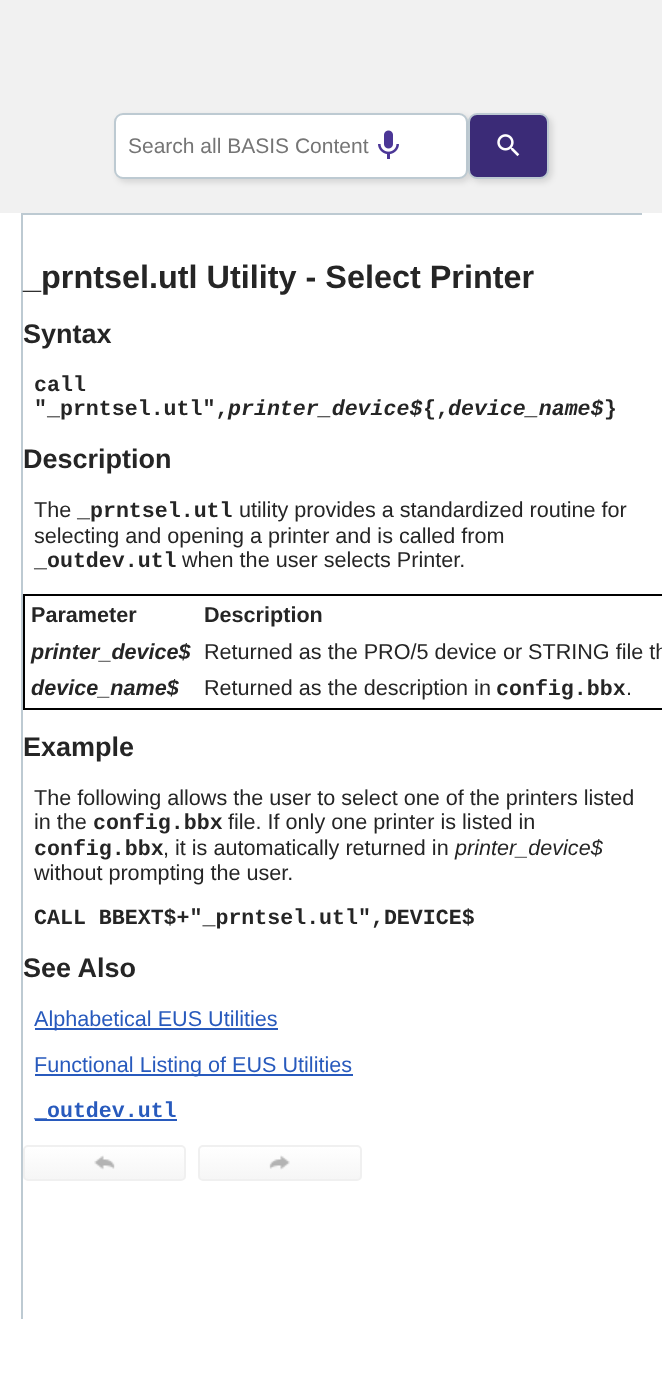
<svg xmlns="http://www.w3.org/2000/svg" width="662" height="1378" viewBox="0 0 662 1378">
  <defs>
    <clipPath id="clip1"><rect x="23" y="1145" width="163" height="36" rx="5"/></clipPath>
    <linearGradient id="g1" gradientUnits="userSpaceOnUse" x1="104" y1="1146" x2="104" y2="1179"><stop offset="0" stop-color="#fff"/><stop offset="1" stop-color="#f6f6f6"/></linearGradient>
    <clipPath id="clip2"><rect x="198" y="1145" width="164" height="36" rx="5"/></clipPath>
    <linearGradient id="g2" gradientUnits="userSpaceOnUse" x1="280" y1="1146" x2="280" y2="1179"><stop offset="0" stop-color="#fff"/><stop offset="1" stop-color="#f6f6f6"/></linearGradient>
  </defs>
  <rect width="100%" height="100%" fill="#fff"/>
  <path d="M0 0h662v213H0z" fill="#f1f1f1"/>
  <rect x="117" y="116" width="354" height="66" rx="9" fill="#0000001f" filter="blur(3px)"/>
  <rect x="115" y="114" width="352" height="64" rx="8" fill="#fff" stroke="#bdcad2" stroke-width="2"/>
  <image x="378" y="130" width="21" height="29" href="img/1.png"/>
  <rect x="471" y="116" width="81" height="66" rx="9" fill="#0000001f" filter="blur(3px)"/>
  <rect x="469" y="114" width="79" height="64" rx="8" fill="#3b2b77" stroke="#bdcad2" stroke-width="2"/>
  <image x="497" y="134" width="23" height="23" href="img/2.png"/>
  <path d="M21 213h621v2H21z" fill="#bdcad2"/>
  <path d="M21 213h2v1106H21z" fill="#bdcad2"/>
  <path d="M23 594h639v2H23z" fill="#000"/>
  <path d="M23 708h639v2H23z" fill="#000"/>
  <path d="M23 594h2v116H23z" fill="#000"/>
  <path d="M35 1028h243v2H35z" fill="#285abd"/>
  <path d="M35 1074h318v2H35z" fill="#285abd"/>
  <path d="M35 1119h142v2H35z" fill="#285abd"/>
  <g clip-path="url(#clip1)">
    <path d="M23 1146h163v33H23z" fill="url(#g1)"/>
  </g>
  <rect x="24" y="1146" width="161" height="34" rx="4" fill="none" stroke="#f0f0f0" stroke-width="2"/>
  <image x="94" y="1155" width="21" height="15" href="img/3.png"/>
  <g clip-path="url(#clip2)">
    <path d="M198 1146h164v33H198z" fill="url(#g2)"/>
  </g>
  <rect x="199" y="1146" width="162" height="34" rx="4" fill="none" stroke="#f0f0f0" stroke-width="2"/>
  <image x="269" y="1155" width="21" height="15" href="img/4.png"/>
  <text x="128" y="153" font-family="Liberation Sans" font-size="21" fill="#757575">Search all BASIS Content</text>
  <text x="23" y="288" font-family="Liberation Sans" font-size="32.4" font-weight="bold" fill="#252525">_prntsel.utl Utility - Select Printer</text>
  <text x="23" y="343" font-family="Liberation Sans" font-size="27" font-weight="bold" fill="#252525">Syntax</text>
  <g font-family="Liberation Mono" font-size="21.6" font-weight="bold" fill="#252525">
    <text x="34" y="391">call</text>
    <text x="34" y="415">"_prntsel.utl",</text>
  </g>
  <text x="228" y="415" font-family="Liberation Mono" font-size="21.6" font-weight="bold" font-style="italic" fill="#252525">printer_device$</text>
  <text x="423" y="415" font-family="Liberation Mono" font-size="21.6" font-weight="bold" fill="#252525">{,</text>
  <text x="448" y="415" font-family="Liberation Mono" font-size="21.6" font-weight="bold" font-style="italic" fill="#252525">device_name$</text>
  <text x="604" y="415" font-family="Liberation Mono" font-size="21.6" font-weight="bold" fill="#252525">}</text>
  <text x="23" y="468" font-family="Liberation Sans" font-size="27" font-weight="bold" fill="#252525">Description</text>
  <text x="34" y="517" font-family="Liberation Sans" font-size="21.6" fill="#252525">The</text>
  <text x="77" y="517" font-family="Liberation Mono" font-size="21.6" font-weight="bold" fill="#252525">_prntsel.utl</text>
  <g font-family="Liberation Sans" font-size="21.6" fill="#252525">
    <text x="239" y="517">utility provides a standardized routine for</text>
    <text x="34" y="543">selecting and opening a printer and is called from</text>
  </g>
  <text x="34" y="567" font-family="Liberation Mono" font-size="21.6" font-weight="bold" fill="#252525">_outdev.utl</text>
  <text x="182" y="567" font-family="Liberation Sans" font-size="21.6" fill="#252525">when the user selects Printer.</text>
  <g font-family="Liberation Sans" font-size="21.6" font-weight="bold" fill="#252525">
    <text x="31" y="622">Parameter</text>
    <text x="204" y="622">Description</text>
  </g>
  <text x="31" y="659" font-family="Liberation Sans" font-size="21.6" font-weight="bold" font-style="italic" fill="#252525">printer_device$</text>
  <text x="204" y="659" font-family="Liberation Sans" font-size="21.6" fill="#252525">Returned as the PRO/5 device or STRING file th</text>
  <text x="31" y="695" font-family="Liberation Sans" font-size="21.6" font-weight="bold" font-style="italic" fill="#252525">device_name$</text>
  <text x="204" y="695" font-family="Liberation Sans" font-size="21.6" fill="#252525">Returned as the description in</text>
  <text x="496" y="695" font-family="Liberation Mono" font-size="21.6" font-weight="bold" fill="#252525">config.bbx</text>
  <text x="626" y="695" font-family="Liberation Sans" font-size="21.6" fill="#252525">.</text>
  <text x="23" y="756" font-family="Liberation Sans" font-size="27" font-weight="bold" fill="#252525">Example</text>
  <g font-family="Liberation Sans" font-size="21.6" fill="#252525">
    <text x="34" y="805">The following allows the user to select one of the printers listed</text>
    <text x="34" y="829">in the</text>
  </g>
  <text x="93" y="829" font-family="Liberation Mono" font-size="21.6" font-weight="bold" fill="#252525">config.bbx</text>
  <text x="228" y="829" font-family="Liberation Sans" font-size="21.6" fill="#252525">file. If only one printer is listed in</text>
  <text x="34" y="855" font-family="Liberation Mono" font-size="21.6" font-weight="bold" fill="#252525">config.bbx</text>
  <text x="163" y="855" font-family="Liberation Sans" font-size="21.6" fill="#252525">, it is automatically returned in</text>
  <text x="455" y="855" font-family="Liberation Sans" font-size="21.6" font-style="italic" fill="#252525">printer_device$</text>
  <text x="34" y="880" font-family="Liberation Sans" font-size="21.6" fill="#252525">without prompting the user.</text>
  <text x="34" y="924" font-family="Liberation Mono" font-size="21.6" font-weight="bold" fill="#252525">CALL BBEXT$+"_prntsel.utl",DEVICE$</text>
  <text x="23" y="977" font-family="Liberation Sans" font-size="27" font-weight="bold" fill="#252525">See Also</text>
  <g font-family="Liberation Sans" font-size="21.6" fill="#285abd">
    <text x="34" y="1026">Alphabetical EUS Utilities</text>
    <text x="34" y="1072">Functional Listing of EUS Utilities</text>
  </g>
  <text x="34" y="1117" font-family="Liberation Mono" font-size="21.6" font-weight="bold" fill="#285abd">_outdev.utl</text>
</svg>
